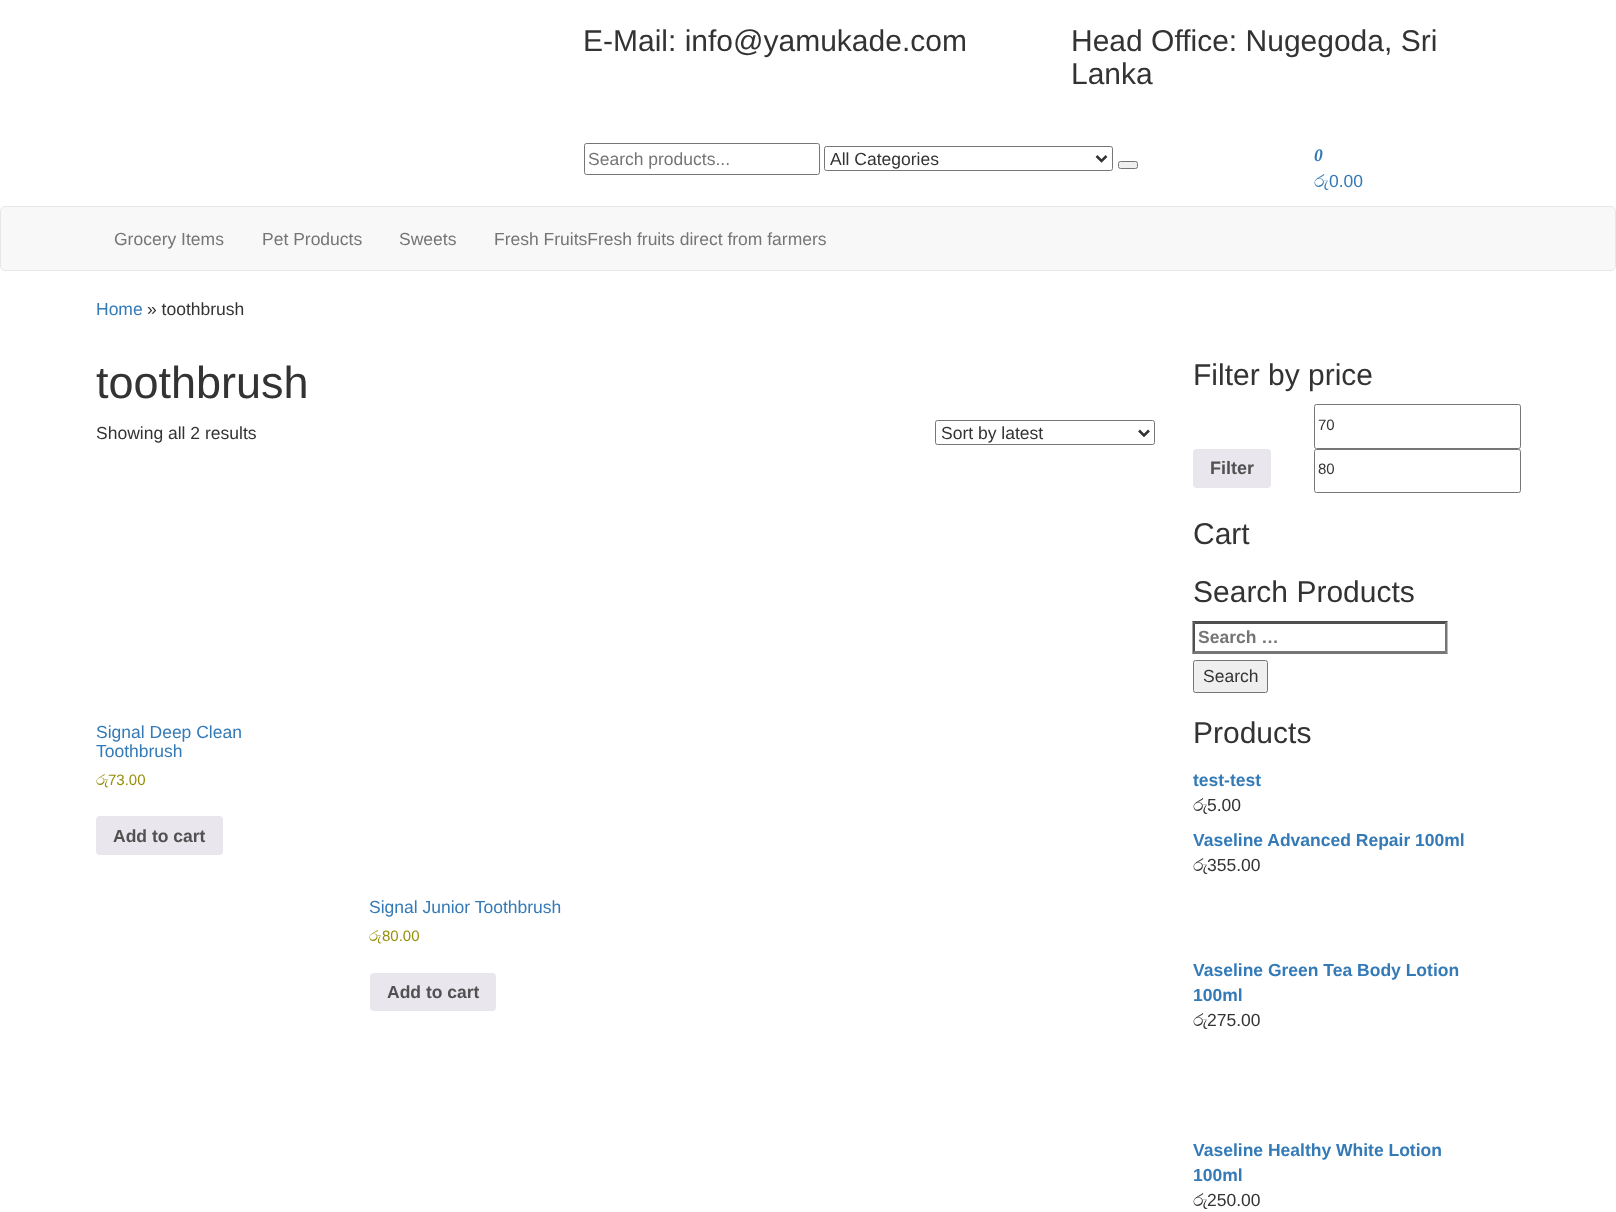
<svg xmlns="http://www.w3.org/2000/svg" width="1616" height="1212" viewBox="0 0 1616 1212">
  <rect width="100%" height="100%" fill="#fff"/>
  <rect x="584.5" y="143.5" width="235" height="31" rx="2" fill="none" stroke="#767676"/>
  <rect x="824.5" y="146.5" width="288" height="24" rx="2" fill="none" stroke="#767676"/>
  <path d="M1096.5 156L1101.5 161L1106.5 156" fill="none" stroke="#333" stroke-width="2.5"/>
  <rect x="1118.5" y="161.5" width="19" height="7" rx="2" fill="#efefef" stroke="#767676"/>
  <rect x="0.5" y="206.5" width="1615" height="64" rx="4.5" fill="#f8f8f8" stroke="#e7e7e7"/>
  <rect x="935.5" y="420.5" width="219" height="24" rx="2" fill="none" stroke="#767676"/>
  <path d="M1139 430.5L1144 435.5L1149 430.5" fill="none" stroke="#333" stroke-width="2.5"/>
  <rect x="96" y="816" width="127" height="39" rx="4" fill="#e9e6ed"/>
  <rect x="370" y="973" width="126" height="38" rx="4" fill="#e9e6ed"/>
  <rect x="1314.5" y="404.5" width="206" height="44" rx="2" fill="none" stroke="#767676"/>
  <rect x="1193" y="449" width="78" height="39" rx="4" fill="#e9e6ed"/>
  <rect x="1314.5" y="449.5" width="206" height="43" rx="2" fill="none" stroke="#767676"/>
  <path d="M1192 621H1448L1445 624H1195Z" fill="#4f4f4f"/>
  <path d="M1447.5 621V654L1445 651V624Z" fill="#767676"/>
  <path d="M1448 654H1192L1195 651H1445Z" fill="#767676"/>
  <path d="M1192.5 654V621L1195 624V651Z" fill="#4f4f4f"/>
  <rect x="1193.5" y="660.5" width="74" height="32" rx="2" fill="#efefef" stroke="#767676"/>
  <g font-family="Liberation Sans" font-size="30" fill="#333">
    <text x="583" y="51">E-Mail: info@yamukade.com</text>
    <text x="1071" y="51">Head Office: Nugegoda, Sri</text>
    <text x="1071" y="84">Lanka</text>
  </g>
  <text x="588" y="165" font-family="Liberation Sans" font-size="17.5" fill="#757575">Search products...</text>
  <text x="830" y="165" font-family="Liberation Sans" font-size="17.5" fill="#333">All Categories</text>
  <text x="1314" y="161" font-family="Liberation Serif" font-size="17.5" font-weight="bold" font-style="italic" fill="#337ab7">0</text>
  <text x="1314" y="187" font-family="FreeSerif" font-size="17.5" fill="#337ab7">රු</text>
  <text x="1329" y="187" font-family="Liberation Sans" font-size="17.5" fill="#337ab7">0.00</text>
  <g font-family="Liberation Sans" font-size="17.5" fill="#757575">
    <text x="114" y="245">Grocery Items</text>
    <text x="262" y="245">Pet Products</text>
    <text x="399" y="245">Sweets</text>
    <text x="494" y="245">Fresh FruitsFresh fruits direct from farmers</text>
  </g>
  <text x="96" y="315" font-family="Liberation Sans" font-size="17.5" fill="#337ab7">Home</text>
  <text x="147" y="315" font-family="Liberation Sans" font-size="17.5" fill="#333">» toothbrush</text>
  <text x="96" y="398" font-family="Liberation Sans" font-size="45" fill="#333">toothbrush</text>
  <g font-family="Liberation Sans" font-size="17.5" fill="#333">
    <text x="96" y="439">Showing all 2 results</text>
    <text x="941" y="439">Sort by latest</text>
  </g>
  <g font-family="Liberation Sans" font-size="17.5" fill="#337ab7">
    <text x="96" y="738">Signal Deep Clean</text>
    <text x="96" y="757">Toothbrush</text>
  </g>
  <text x="96" y="785" font-family="FreeSerif" font-size="15" fill="#958e09">රු</text>
  <text x="108" y="785" font-family="Liberation Sans" font-size="15" fill="#958e09">73.00</text>
  <text x="113" y="842" font-family="Liberation Sans" font-size="17.5" font-weight="bold" fill="#515151">Add to cart</text>
  <text x="369" y="913" font-family="Liberation Sans" font-size="17.5" fill="#337ab7">Signal Junior Toothbrush</text>
  <text x="369" y="941" font-family="FreeSerif" font-size="15" fill="#958e09">රු</text>
  <text x="382" y="941" font-family="Liberation Sans" font-size="15" fill="#958e09">80.00</text>
  <text x="387" y="998" font-family="Liberation Sans" font-size="17.5" font-weight="bold" fill="#515151">Add to cart</text>
  <text x="1193" y="385" font-family="Liberation Sans" font-size="30" fill="#333">Filter by price</text>
  <text x="1318" y="430" font-family="Liberation Sans" font-size="15" fill="#333">70</text>
  <text x="1210" y="474" font-family="Liberation Sans" font-size="18" font-weight="bold" fill="#515151">Filter</text>
  <text x="1318" y="474" font-family="Liberation Sans" font-size="15" fill="#333">80</text>
  <g font-family="Liberation Sans" font-size="30" fill="#333">
    <text x="1193" y="544">Cart</text>
    <text x="1193" y="602">Search Products</text>
  </g>
  <text x="1198" y="643" font-family="Liberation Sans" font-size="17.5" font-weight="bold" fill="#757575">Search …</text>
  <text x="1203" y="682" font-family="Liberation Sans" font-size="17.5" fill="#333">Search</text>
  <text x="1193" y="743" font-family="Liberation Sans" font-size="30" fill="#333">Products</text>
  <text x="1193" y="786" font-family="Liberation Sans" font-size="17.5" font-weight="bold" fill="#337ab7">test-test</text>
  <text x="1193" y="811" font-family="FreeSerif" font-size="17.5" fill="#333">රු</text>
  <text x="1207" y="811" font-family="Liberation Sans" font-size="17.5" fill="#333">5.00</text>
  <text x="1193" y="846" font-family="Liberation Sans" font-size="17.5" font-weight="bold" fill="#337ab7">Vaseline Advanced Repair 100ml</text>
  <text x="1193" y="871" font-family="FreeSerif" font-size="17.5" fill="#333">රු</text>
  <text x="1207" y="871" font-family="Liberation Sans" font-size="17.5" fill="#333">355.00</text>
  <g font-family="Liberation Sans" font-size="17.5" font-weight="bold" fill="#337ab7">
    <text x="1193" y="976">Vaseline Green Tea Body Lotion</text>
    <text x="1193" y="1001">100ml</text>
  </g>
  <text x="1193" y="1026" font-family="FreeSerif" font-size="17.5" fill="#333">රු</text>
  <text x="1207" y="1026" font-family="Liberation Sans" font-size="17.5" fill="#333">275.00</text>
  <g font-family="Liberation Sans" font-size="17.5" font-weight="bold" fill="#337ab7">
    <text x="1193" y="1156">Vaseline Healthy White Lotion</text>
    <text x="1193" y="1181">100ml</text>
  </g>
  <text x="1193" y="1206" font-family="FreeSerif" font-size="17.5" fill="#333">රු</text>
  <text x="1207" y="1206" font-family="Liberation Sans" font-size="17.5" fill="#333">250.00</text>
</svg>
